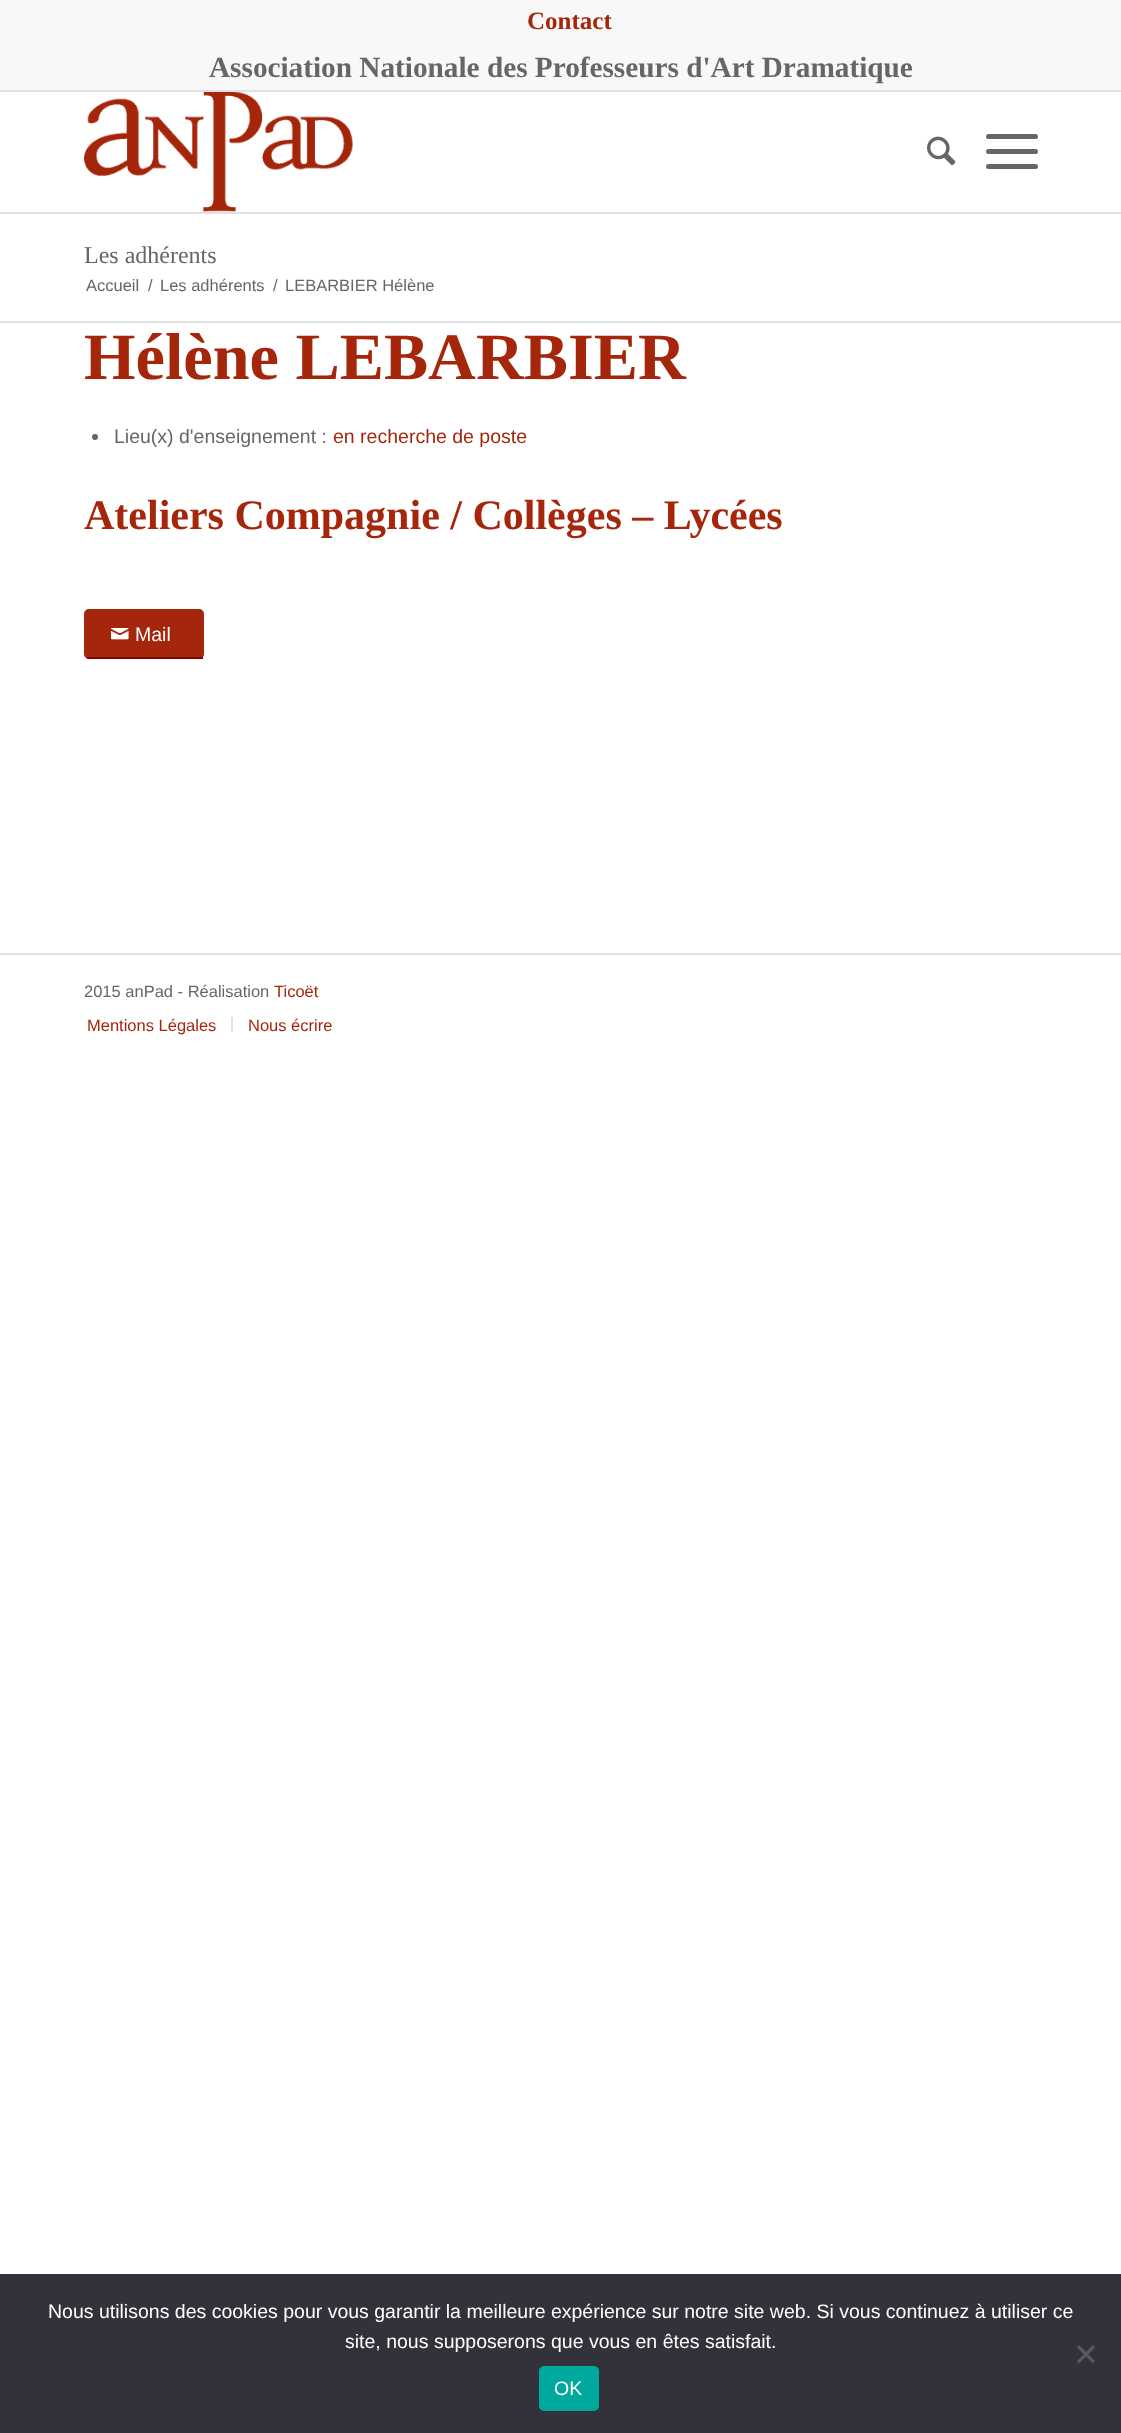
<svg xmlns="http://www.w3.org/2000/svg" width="1121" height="2433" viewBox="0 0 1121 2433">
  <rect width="100%" height="100%" fill="#fff"/>
  <path d="M0 0h1121v90H0z" fill="#f8f8f8"/>
  <path d="M0 90h1121v2H0z" fill="#e1e1e1"/>
  <path d="M0 212h1121v2H0z" fill="#e1e1e1"/>
  <image x="84" y="92" width="269" height="120" href="img/1.png"/>
  <image x="927" y="136" width="29" height="30" href="img/2.png"/>
  <rect x="986" y="149" width="52" height="5" rx="2.5" fill="#666"/>
  <rect x="986" y="134" width="52" height="5" rx="2.5" fill="#666"/>
  <rect x="986" y="164" width="52" height="5" rx="2.5" fill="#666"/>
  <path d="M0 321h1121v2H0z" fill="#e1e1e1"/>
  <circle cx="95" cy="437" r="3" fill="#666"/>
  <rect x="84" y="609" width="120" height="50" rx="5" fill="#a5260a"/>
  <path d="M87 657h116v2H87z" fill="#830408"/>
  <image x="111" y="628" width="18" height="12" href="img/3.png"/>
  <path d="M0 953h1121v2H0z" fill="#e1e1e1"/>
  <path d="M231 1017h2v15H231z" fill="#e1e1e1"/>
  <path d="M0 2274h1121v159H0z" fill="#32323a"/>
  <path d="M1093 2345L1095 2347.5L1079 2363.5L1077 2361Z" fill="#59595d"/>
  <path d="M1077 2347.5L1079 2345L1095 2361L1093 2363.5Z" fill="#59595d"/>
  <rect x="539" y="2366" width="60" height="45" rx="5" fill="#00a99d"/>
  <text x="527" y="29" font-family="Liberation Serif" font-size="25" font-weight="bold" fill="#a5260a">Contact</text>
  <text x="209" y="77" font-family="Liberation Serif" font-size="29.25" font-weight="bold" fill="#666">Association Nationale des Professeurs d'Art Dramatique</text>
  <text x="84" y="263" font-family="Liberation Serif" font-size="24" fill="#666">Les adhérents</text>
  <g font-family="Liberation Sans" font-size="16.5" fill="#666">
    <text x="86" y="291">Accueil</text>
    <text x="148" y="291">/</text>
    <text x="160" y="291">Les adhérents</text>
    <text x="273" y="291">/</text>
    <text x="285" y="291">LEBARBIER Hélène</text>
  </g>
  <text x="84" y="379" font-family="Liberation Serif" font-size="66.25" font-weight="bold" fill="#a5260a">Hélène LEBARBIER</text>
  <text x="114" y="443" font-family="Liberation Sans" font-size="19.5" fill="#666">Lieu(x) d'enseignement :</text>
  <text x="333" y="443" font-family="Liberation Sans" font-size="19.5" fill="#a5260a">en recherche de poste</text>
  <text x="84" y="529" font-family="Liberation Serif" font-size="42" font-weight="bold" fill="#a5260a">Ateliers Compagnie / Collèges – Lycées</text>
  <text x="135" y="641" font-family="Liberation Sans" font-size="19.5" fill="#fff">Mail</text>
  <text x="84" y="997" font-family="Liberation Sans" font-size="16.5" fill="#666">2015 anPad - Réalisation</text>
  <g font-family="Liberation Sans" font-size="16.5" fill="#a5260a">
    <text x="274" y="997">Ticoët</text>
    <text x="87" y="1031">Mentions Légales</text>
    <text x="248" y="1031">Nous écrire</text>
  </g>
  <g font-family="Liberation Sans" font-size="19.5" fill="#fff">
    <text x="48" y="2318">Nous utilisons des cookies pour vous garantir la meilleure expérience sur notre site web. Si vous continuez à utiliser ce</text>
    <text x="345" y="2348">site, nous supposerons que vous en êtes satisfait.</text>
    <text x="554" y="2395">OK</text>
  </g>
</svg>
